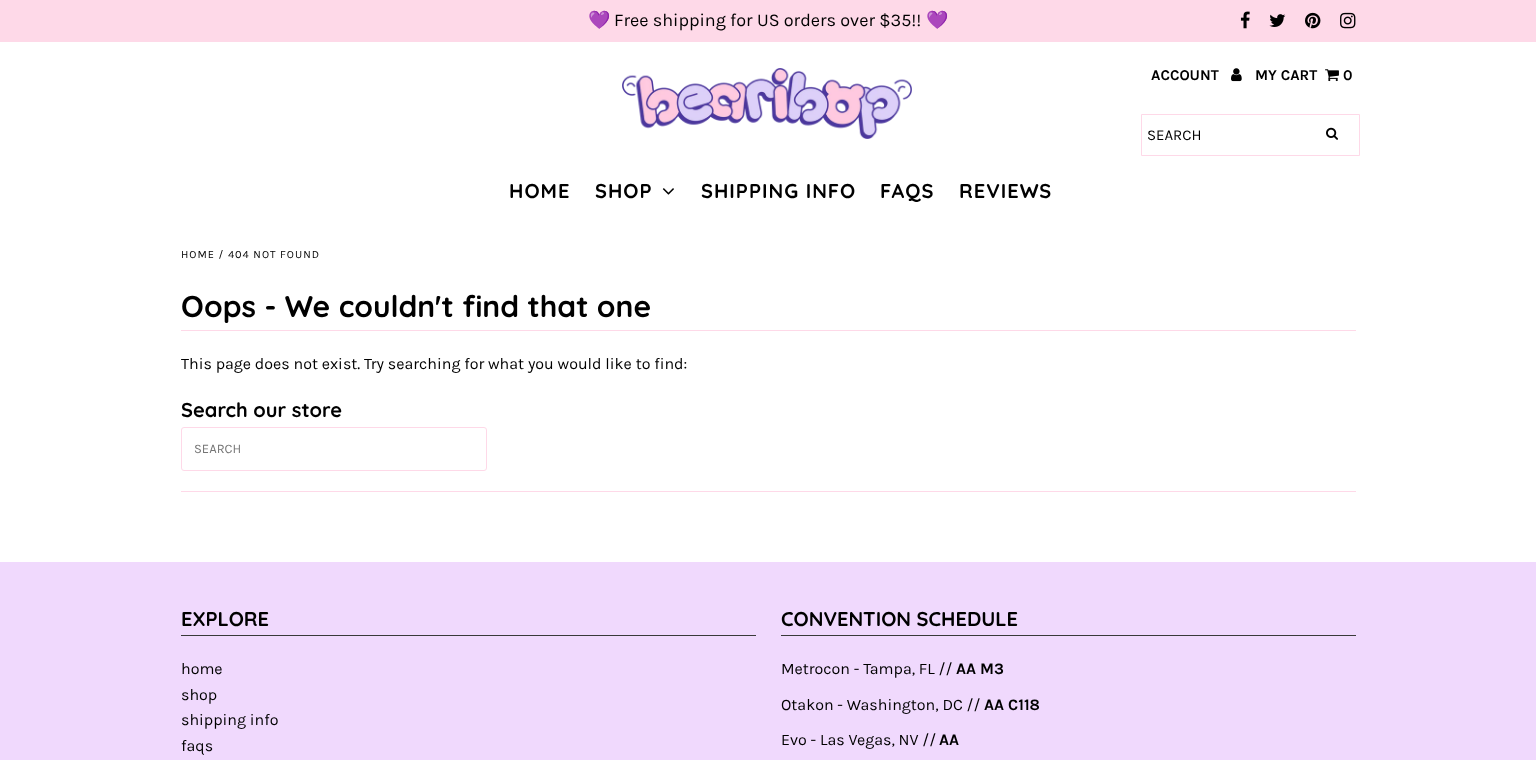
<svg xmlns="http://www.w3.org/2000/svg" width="1536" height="760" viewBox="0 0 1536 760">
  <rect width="100%" height="100%" fill="#fff"/>
  <path d="M0 0h1536v42H0z" fill="#fed9e8"/>
  <image x="1240" y="11" width="10" height="18" href="img/1.png"/>
  <image x="1269" y="14" width="17" height="13" href="img/2.png"/>
  <image x="1305" y="12" width="16" height="17" href="img/3.png"/>
  <image x="1340" y="12" width="16" height="17" href="img/4.png"/>
  <image x="622" y="68" width="290" height="71" href="img/5.png"/>
  <image x="1231" y="68" width="11" height="14" href="img/6.png"/>
  <image x="1325" y="69" width="14" height="13" href="img/7.png"/>
  <path d="M1141.5 114.5h218v41H1141.5z" fill="none" stroke="#fed9e8"/>
  <image x="1326" y="127" width="12" height="13" href="img/8.png"/>
  <image x="662" y="188" width="12" height="7" href="img/9.png"/>
  <path d="M181 330h1175v1H181z" fill="#fed9e8"/>
  <path d="M181 491h1175v1H181z" fill="#fed9e8"/>
  <rect x="181.5" y="427.5" width="305" height="43" rx="2.5" fill="none" stroke="#fed9e8"/>
  <path d="M0 562h1536v198H0z" fill="#f0d9fd"/>
  <path d="M181 635h575v1H181z" fill="#393939"/>
  <path d="M781 635h575v1H781z" fill="#393939"/>
  <text x="588" y="26" font-family="Noto Color Emoji" font-size="18" fill="#000">💜</text>
  <text x="614" y="26" font-family="Karla" font-size="18" fill="#000">Free shipping for US orders over $35!!</text>
  <text x="926" y="26" font-family="Noto Color Emoji" font-size="18" fill="#000">💜</text>
  <g font-family="Karla" font-size="15" font-weight="bold" fill="#000">
    <text x="1151" y="80">ACCOUNT</text>
    <text x="1255" y="80">MY CART</text>
    <text x="1343" y="80">0</text>
  </g>
  <text x="1147" y="140" font-family="Karla" font-size="15" fill="#000">SEARCH</text>
  <g font-family="Quicksand" font-size="20" font-weight="bold" letter-spacing="1" fill="#000">
    <text x="509" y="198">HOME</text>
    <text x="595" y="198">SHOP</text>
    <text x="701" y="198">SHIPPING INFO</text>
    <text x="880" y="198">FAQS</text>
    <text x="959" y="198">REVIEWS</text>
  </g>
  <text x="181" y="258" font-family="Karla" font-size="11" letter-spacing="1" fill="#000">HOME / 404 NOT FOUND</text>
  <text x="181" y="317" font-family="Quicksand" font-size="30" font-weight="bold" fill="#000">Oops - We couldn't find that one</text>
  <text x="181" y="369" font-family="Karla" font-size="16" fill="#000">This page does not exist. Try searching for what you would like to find:</text>
  <text x="181" y="417" font-family="Quicksand" font-size="20" font-weight="bold" fill="#000">Search our store</text>
  <text x="194" y="453" font-family="Karla" font-size="13" fill="#757575">SEARCH</text>
  <text x="181" y="626" font-family="Quicksand" font-size="20" font-weight="bold" fill="#000">EXPLORE</text>
  <g font-family="Karla" font-size="16" fill="#000">
    <text x="181" y="674">home</text>
    <text x="181" y="700">shop</text>
    <text x="181" y="725">shipping info</text>
    <text x="181" y="751">faqs</text>
  </g>
  <text x="781" y="626" font-family="Quicksand" font-size="20" font-weight="bold" fill="#000">CONVENTION SCHEDULE</text>
  <text x="781" y="674" font-family="Karla" font-size="16" fill="#000">Metrocon - Tampa, FL //</text>
  <text x="956" y="674" font-family="Karla" font-size="16" font-weight="bold" fill="#000">AA M3</text>
  <text x="781" y="710" font-family="Karla" font-size="16" fill="#000">Otakon - Washington, DC //</text>
  <text x="984" y="710" font-family="Karla" font-size="16" font-weight="bold" fill="#000">AA C118</text>
  <text x="781" y="745" font-family="Karla" font-size="16" fill="#000">Evo - Las Vegas, NV //</text>
  <text x="939" y="745" font-family="Karla" font-size="16" font-weight="bold" fill="#000">AA</text>
</svg>
